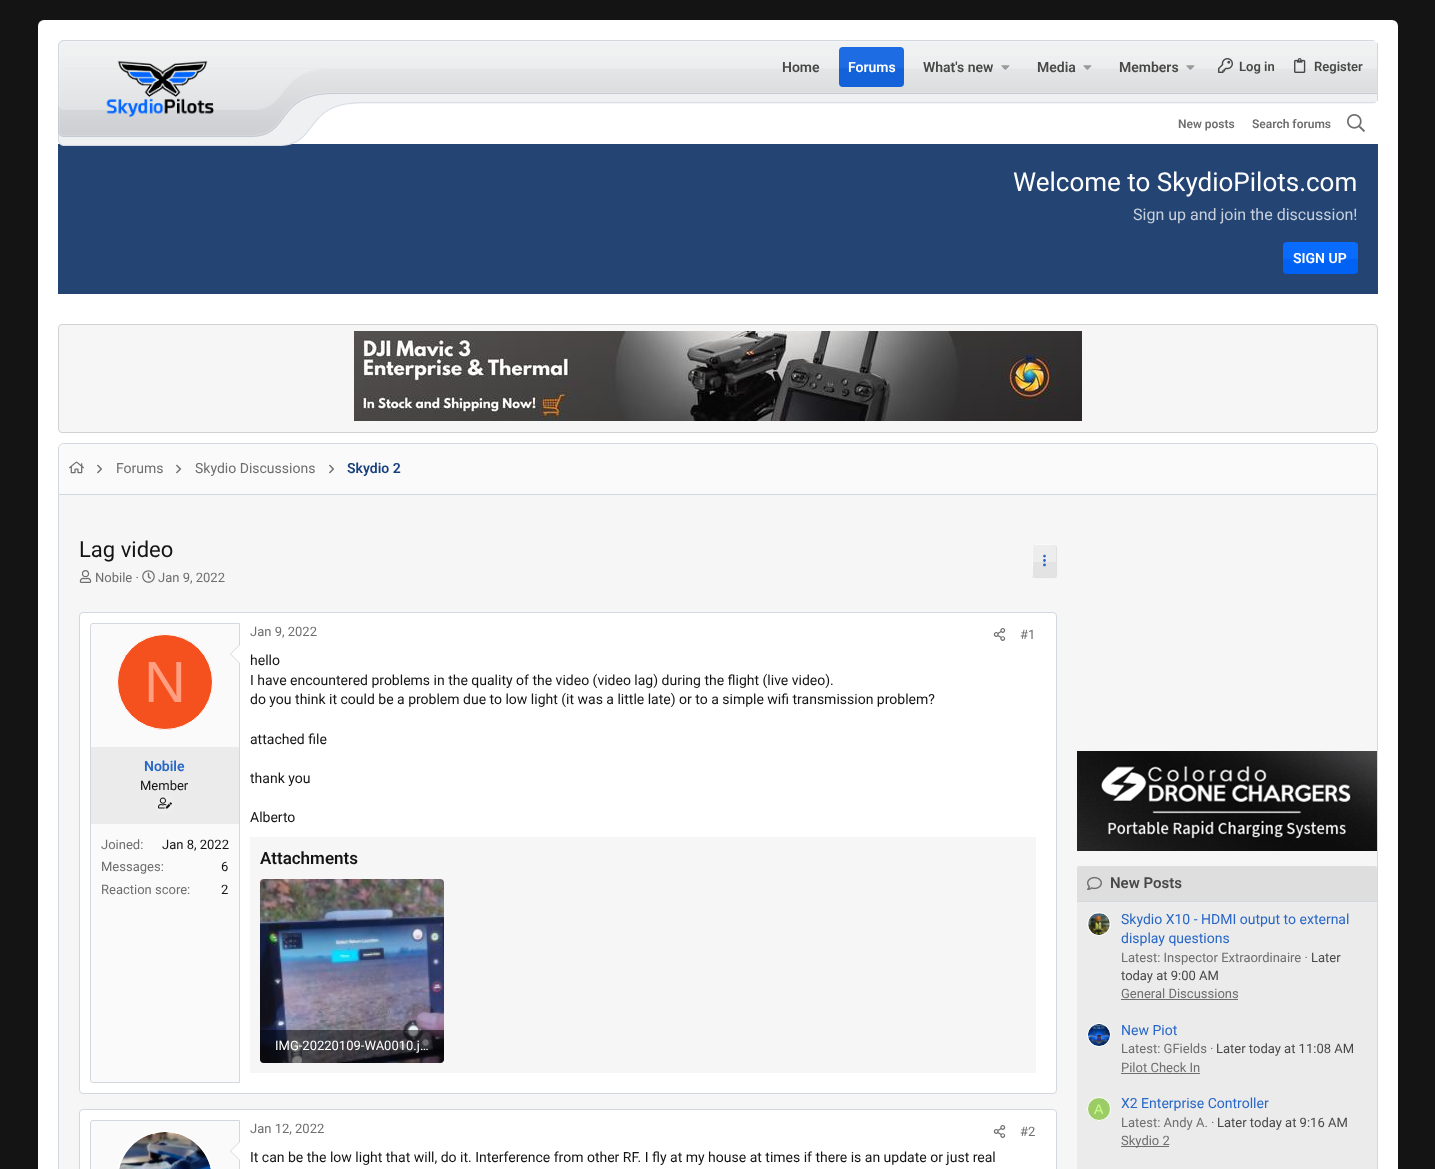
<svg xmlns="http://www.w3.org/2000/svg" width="1435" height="1169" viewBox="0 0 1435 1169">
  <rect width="100%" height="100%" fill="#141414"/>
  <rect x="38" y="20" width="1360" height="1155" rx="6" fill="#fff"/>
  <image x="58" y="40" width="1319" height="64" href="img/1.png"/>
  <path d="M1377 43h1v58H1377z" fill="#d3d8df"/>
  <path d="M58 144h1320v150H58z" fill="#244473"/>
  <image x="64" y="69" width="188" height="77" href="img/2.png"/>
  <image x="58" y="40" width="6" height="106" href="img/3.png"/>
  <image x="106" y="60" width="108" height="57" href="img/4.png"/>
  <image x="252" y="69" width="106" height="77" href="img/5.png"/>
  <rect x="839" y="47" width="65" height="40" rx="4" fill="#1567e3"/>
  <image x="839" y="47" width="65" height="40" href="img/6.png"/>
  <image x="1001" y="65" width="9" height="5" href="img/7.png"/>
  <image x="1083" y="65" width="9" height="5" href="img/7.png"/>
  <image x="1186" y="65" width="9" height="5" href="img/7.png"/>
  <image x="1218" y="58" width="15" height="15" href="img/8.png"/>
  <image x="1294" y="58" width="12" height="15" href="img/9.png"/>
  <image x="1347" y="114" width="18" height="18" href="img/10.png"/>
  <rect x="1283" y="242" width="75" height="32" rx="4" fill="#06f"/>
  <image x="1283" y="242" width="75" height="32" href="img/11.png"/>
  <rect x="58.5" y="324.5" width="1319" height="108" rx="3.5" fill="#f6f6f6" stroke="#d2d2d2"/>
  <image x="354" y="331" width="728" height="90" href="img/12.png"/>
  <path d="M64 444H1372C1375 444 1377 446 1377 449V494H59V449C59 446 61 444 64 444Z" fill="#fafafa"/>
  <path d="M64 443H1372C1375 443 1378 446 1378 449V494H58V449C58 446 61 443 64 443ZM64 444H1372C1375 444 1377 446 1377 449V494H59V449C59 446 61 444 64 444Z" fill="#d3d8df" fill-rule="evenodd"/>
  <image x="69" y="461" width="15" height="13" href="img/13.png"/>
  <image x="97" y="464" width="5" height="10" href="img/14.png"/>
  <image x="176" y="464" width="6" height="10" href="img/15.png"/>
  <image x="329" y="464" width="5" height="10" href="img/14.png"/>
  <path d="M58.5 494.5h1319v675H58.5z" fill="#f6f6f6" stroke="#d3d8df"/>
  <image x="79" y="570" width="13" height="13" href="img/16.png"/>
  <image x="142" y="570" width="13" height="13" href="img/17.png"/>
  <rect x="1032" y="544" width="25" height="34" rx="4" fill="#ededed"/>
  <path d="M1032 562h25v16H1032z" fill="#0000000a"/>
  <path d="M1055.5 545.5C1057 547 1056.5 550.5 1056.5 552.5V569.5C1056.5 572.5 1057.5 576.5 1053.5 577.5H1039C1037 577.5 1035 578 1033.5 576.5" fill="none" stroke="#e0e0e0"/>
  <path d="M1033.5 576.5C1032 575 1032.5 571.5 1032.5 569.5V552.5C1032.5 549.5 1031.5 545.5 1035.5 544.5H1050C1052 544.5 1054 544 1055.5 545.5" fill="none" stroke="#fafafa"/>
  <image x="1043" y="554" width="3" height="13" href="img/18.png"/>
  <rect x="79.5" y="612.5" width="977" height="481" rx="3.5" fill="#fff" stroke="#d3d8df"/>
  <path d="M93 623.5H239.5V1082.5H93C91.5 1082.5 90.5 1081.5 90.5 1080V626C90.5 624.5 91.5 623.5 93 623.5Z" fill="#fafafa" stroke="#d3d8df"/>
  <path d="M240 644V664L230 654Z" fill="#d3d8df"/>
  <path d="M240 645V663L231 654Z" fill="#fff"/>
  <circle cx="165" cy="682" r="47.5" fill="#f4511e" stroke="#fff"/>
  <path d="M91 747h148v77H91z" fill="#ebebeb"/>
  <circle cx="164.5" cy="804.5" r="9.5" fill="#eee"/>
  <image x="158" y="797" width="14" height="12" href="img/19.png"/>
  <image x="993" y="628" width="13" height="13" href="img/20.png"/>
  <path d="M250 837h786v236H250z" fill="#f6f6f6"/>
  <image x="260" y="879" width="184" height="184" href="img/21.png"/>
  <path d="M260 1030H444V1059C444 1061 442 1063 440 1063H264C262 1063 260 1061 260 1059Z" fill="#00000080"/>
  <rect x="79.5" y="1109.5" width="977" height="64" rx="3.5" fill="#fff" stroke="#d3d8df"/>
  <path d="M93 1120.5H239.5V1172.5H93C91.5 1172.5 90.5 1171.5 90.5 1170V1123C90.5 1121.5 91.5 1120.5 93 1120.5Z" fill="#fafafa" stroke="#d3d8df"/>
  <rect x="117.5" y="1131.5" width="95" height="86" rx="47.5" fill="none" stroke="#fff"/>
  <rect x="118" y="1132" width="94" height="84" rx="47" fill="#fff"/>
  <image x="119" y="1132" width="92" height="37" href="img/22.png"/>
  <path d="M240 1141V1161L230 1151Z" fill="#d3d8df"/>
  <path d="M240 1142V1160L231 1151Z" fill="#fff"/>
  <image x="993" y="1125" width="13" height="13" href="img/20.png"/>
  <image x="1077" y="751" width="300" height="100" href="img/23.png"/>
  <path d="M1077 866h300v303H1077z" fill="#ebebeb"/>
  <path d="M1080 866H1374C1375.5 866 1377 867.5 1377 869V902H1077V869C1077 867.5 1078.5 866 1080 866Z" fill="#dedede"/>
  <path d="M1077 901h300v1H1077z" fill="#d3d8df"/>
  <image x="1087" y="876" width="15" height="14" href="img/24.png"/>
  <circle cx="1099" cy="924" r="11.5" fill="none" stroke="#fff"/>
  <circle cx="1099" cy="924" r="11" fill="#fff"/>
  <image x="1088" y="913" width="22" height="22" href="img/25.png"/>
  <path d="M1121 999h117v1H1121z" fill="#6e6e6e"/>
  <circle cx="1099" cy="1035" r="11.5" fill="none" stroke="#fff"/>
  <circle cx="1099" cy="1035" r="11" fill="#fff"/>
  <image x="1088" y="1024" width="22" height="22" href="img/26.png"/>
  <path d="M1121 1073h79v1H1121z" fill="#6e6e6e"/>
  <circle cx="1099" cy="1109" r="11.5" fill="#9ccc65" stroke="#fff"/>
  <path d="M1121 1146h48v1H1121z" fill="#6e6e6e"/>
  <text x="782" y="72" font-family="Roboto" font-size="14" font-weight="600" fill="#484848">Home</text>
  <text x="848" y="72" font-family="Roboto" font-size="14" font-weight="600" fill="#fff">Forums</text>
  <g font-family="Roboto" font-size="14" font-weight="600" fill="#484848">
    <text x="923" y="72">What's new</text>
    <text x="1037" y="72">Media</text>
    <text x="1119" y="72">Members</text>
  </g>
  <g font-family="Roboto" font-size="13" font-weight="600" fill="#484848">
    <text x="1239" y="71">Log in</text>
    <text x="1314" y="71">Register</text>
  </g>
  <g font-family="Roboto" font-size="12" font-weight="600" fill="#6e6e6e">
    <text x="1178" y="128">New posts</text>
    <text x="1252" y="128">Search forums</text>
  </g>
  <text x="1013" y="191" font-family="Roboto" font-size="26" fill="#fff">Welcome to SkydioPilots.com</text>
  <text x="1133" y="220" font-family="Roboto" font-size="16" fill="#c8d0dc">Sign up and join the discussion!</text>
  <text x="1293" y="263" font-family="Roboto" font-size="14" font-weight="600" fill="#fff">SIGN UP</text>
  <g font-family="Roboto" font-size="14" fill="#6e6e6e">
    <text x="116" y="473">Forums</text>
    <text x="195" y="473">Skydio Discussions</text>
  </g>
  <text x="347" y="473" font-family="Roboto" font-size="14" font-weight="600" fill="#19417e">Skydio 2</text>
  <text x="79" y="557" font-family="Roboto" font-size="22" fill="#141414">Lag video</text>
  <g font-family="Roboto" font-size="13" fill="#6e6e6e">
    <text x="95" y="582">Nobile ·</text>
    <text x="158" y="582">Jan 9, 2022</text>
  </g>
  <text x="144" y="702" font-family="Liberation Sans" font-size="58" fill="#ff9e80">N</text>
  <text x="144" y="771" font-family="Roboto" font-size="14" font-weight="600" fill="#2867c6">Nobile</text>
  <text x="140" y="790" font-family="Roboto" font-size="13" fill="#141414">Member</text>
  <text x="101" y="849" font-family="Roboto" font-size="13" fill="#6e6e6e">Joined:</text>
  <text x="162" y="849" font-family="Roboto" font-size="13" fill="#141414">Jan 8, 2022</text>
  <text x="101" y="871" font-family="Roboto" font-size="13" fill="#6e6e6e">Messages:</text>
  <text x="221" y="871" font-family="Roboto" font-size="13" fill="#141414">6</text>
  <text x="101" y="894" font-family="Roboto" font-size="13" fill="#6e6e6e">Reaction score:</text>
  <text x="221" y="894" font-family="Roboto" font-size="13" fill="#141414">2</text>
  <g font-family="Roboto" font-size="13" fill="#6e6e6e">
    <text x="250" y="636">Jan 9, 2022</text>
    <text x="1020" y="639">#1</text>
  </g>
  <g font-family="Roboto" font-size="14" fill="#141414">
    <text x="250" y="665">hello</text>
    <text x="250" y="685">I have encountered problems in the quality of the video (video lag) during the flight (live video).</text>
    <text x="250" y="704">do you think it could be a problem due to low light (it was a little late) or to a simple wifi transmission problem?</text>
    <text x="250" y="744">attached file</text>
    <text x="250" y="783">thank you</text>
    <text x="250" y="822">Alberto</text>
  </g>
  <text x="260" y="864" font-family="Roboto" font-size="17" font-weight="600" fill="#141414">Attachments</text>
  <text x="275" y="1050" font-family="Roboto" font-size="13" fill="#fff">IMG-20220109-WA0010.j…</text>
  <g font-family="Roboto" font-size="13" fill="#6e6e6e">
    <text x="250" y="1133">Jan 12, 2022</text>
    <text x="1020" y="1136">#2</text>
  </g>
  <text x="250" y="1162" font-family="Roboto" font-size="14" fill="#141414">It can be the low light that will, do it. Interference from other RF. I fly at my house at times if there is an update or just real</text>
  <text x="1110" y="888" font-family="Roboto" font-size="15" font-weight="600" fill="#484848">New Posts</text>
  <g font-family="Roboto" font-size="14" fill="#2867c6">
    <text x="1121" y="924">Skydio X10 - HDMI output to external</text>
    <text x="1121" y="943">display questions</text>
  </g>
  <text x="1121" y="962" font-family="Roboto" font-size="13" fill="#6e6e6e">Latest: Inspector Extraordinaire ·</text>
  <g font-family="Roboto" font-size="13" fill="#484848">
    <text x="1311" y="962">Later</text>
    <text x="1121" y="980">today at 9:00 AM</text>
  </g>
  <text x="1121" y="998" font-family="Roboto" font-size="13" fill="#6e6e6e">General Discussions</text>
  <text x="1121" y="1035" font-family="Roboto" font-size="14" fill="#2867c6">New Piot</text>
  <text x="1121" y="1053" font-family="Roboto" font-size="13" fill="#6e6e6e">Latest: GFields ·</text>
  <text x="1216" y="1053" font-family="Roboto" font-size="13" fill="#484848">Later today at 11:08 AM</text>
  <text x="1121" y="1072" font-family="Roboto" font-size="13" fill="#6e6e6e">Pilot Check In</text>
  <text x="1094" y="1114" font-family="Liberation Sans" font-size="14" fill="#ccff90">A</text>
  <text x="1121" y="1108" font-family="Roboto" font-size="14" fill="#2867c6">X2 Enterprise Controller</text>
  <text x="1121" y="1127" font-family="Roboto" font-size="13" fill="#6e6e6e">Latest: Andy A. ·</text>
  <text x="1217" y="1127" font-family="Roboto" font-size="13" fill="#484848">Later today at 9:16 AM</text>
  <text x="1121" y="1145" font-family="Roboto" font-size="13" fill="#6e6e6e">Skydio 2</text>
</svg>
